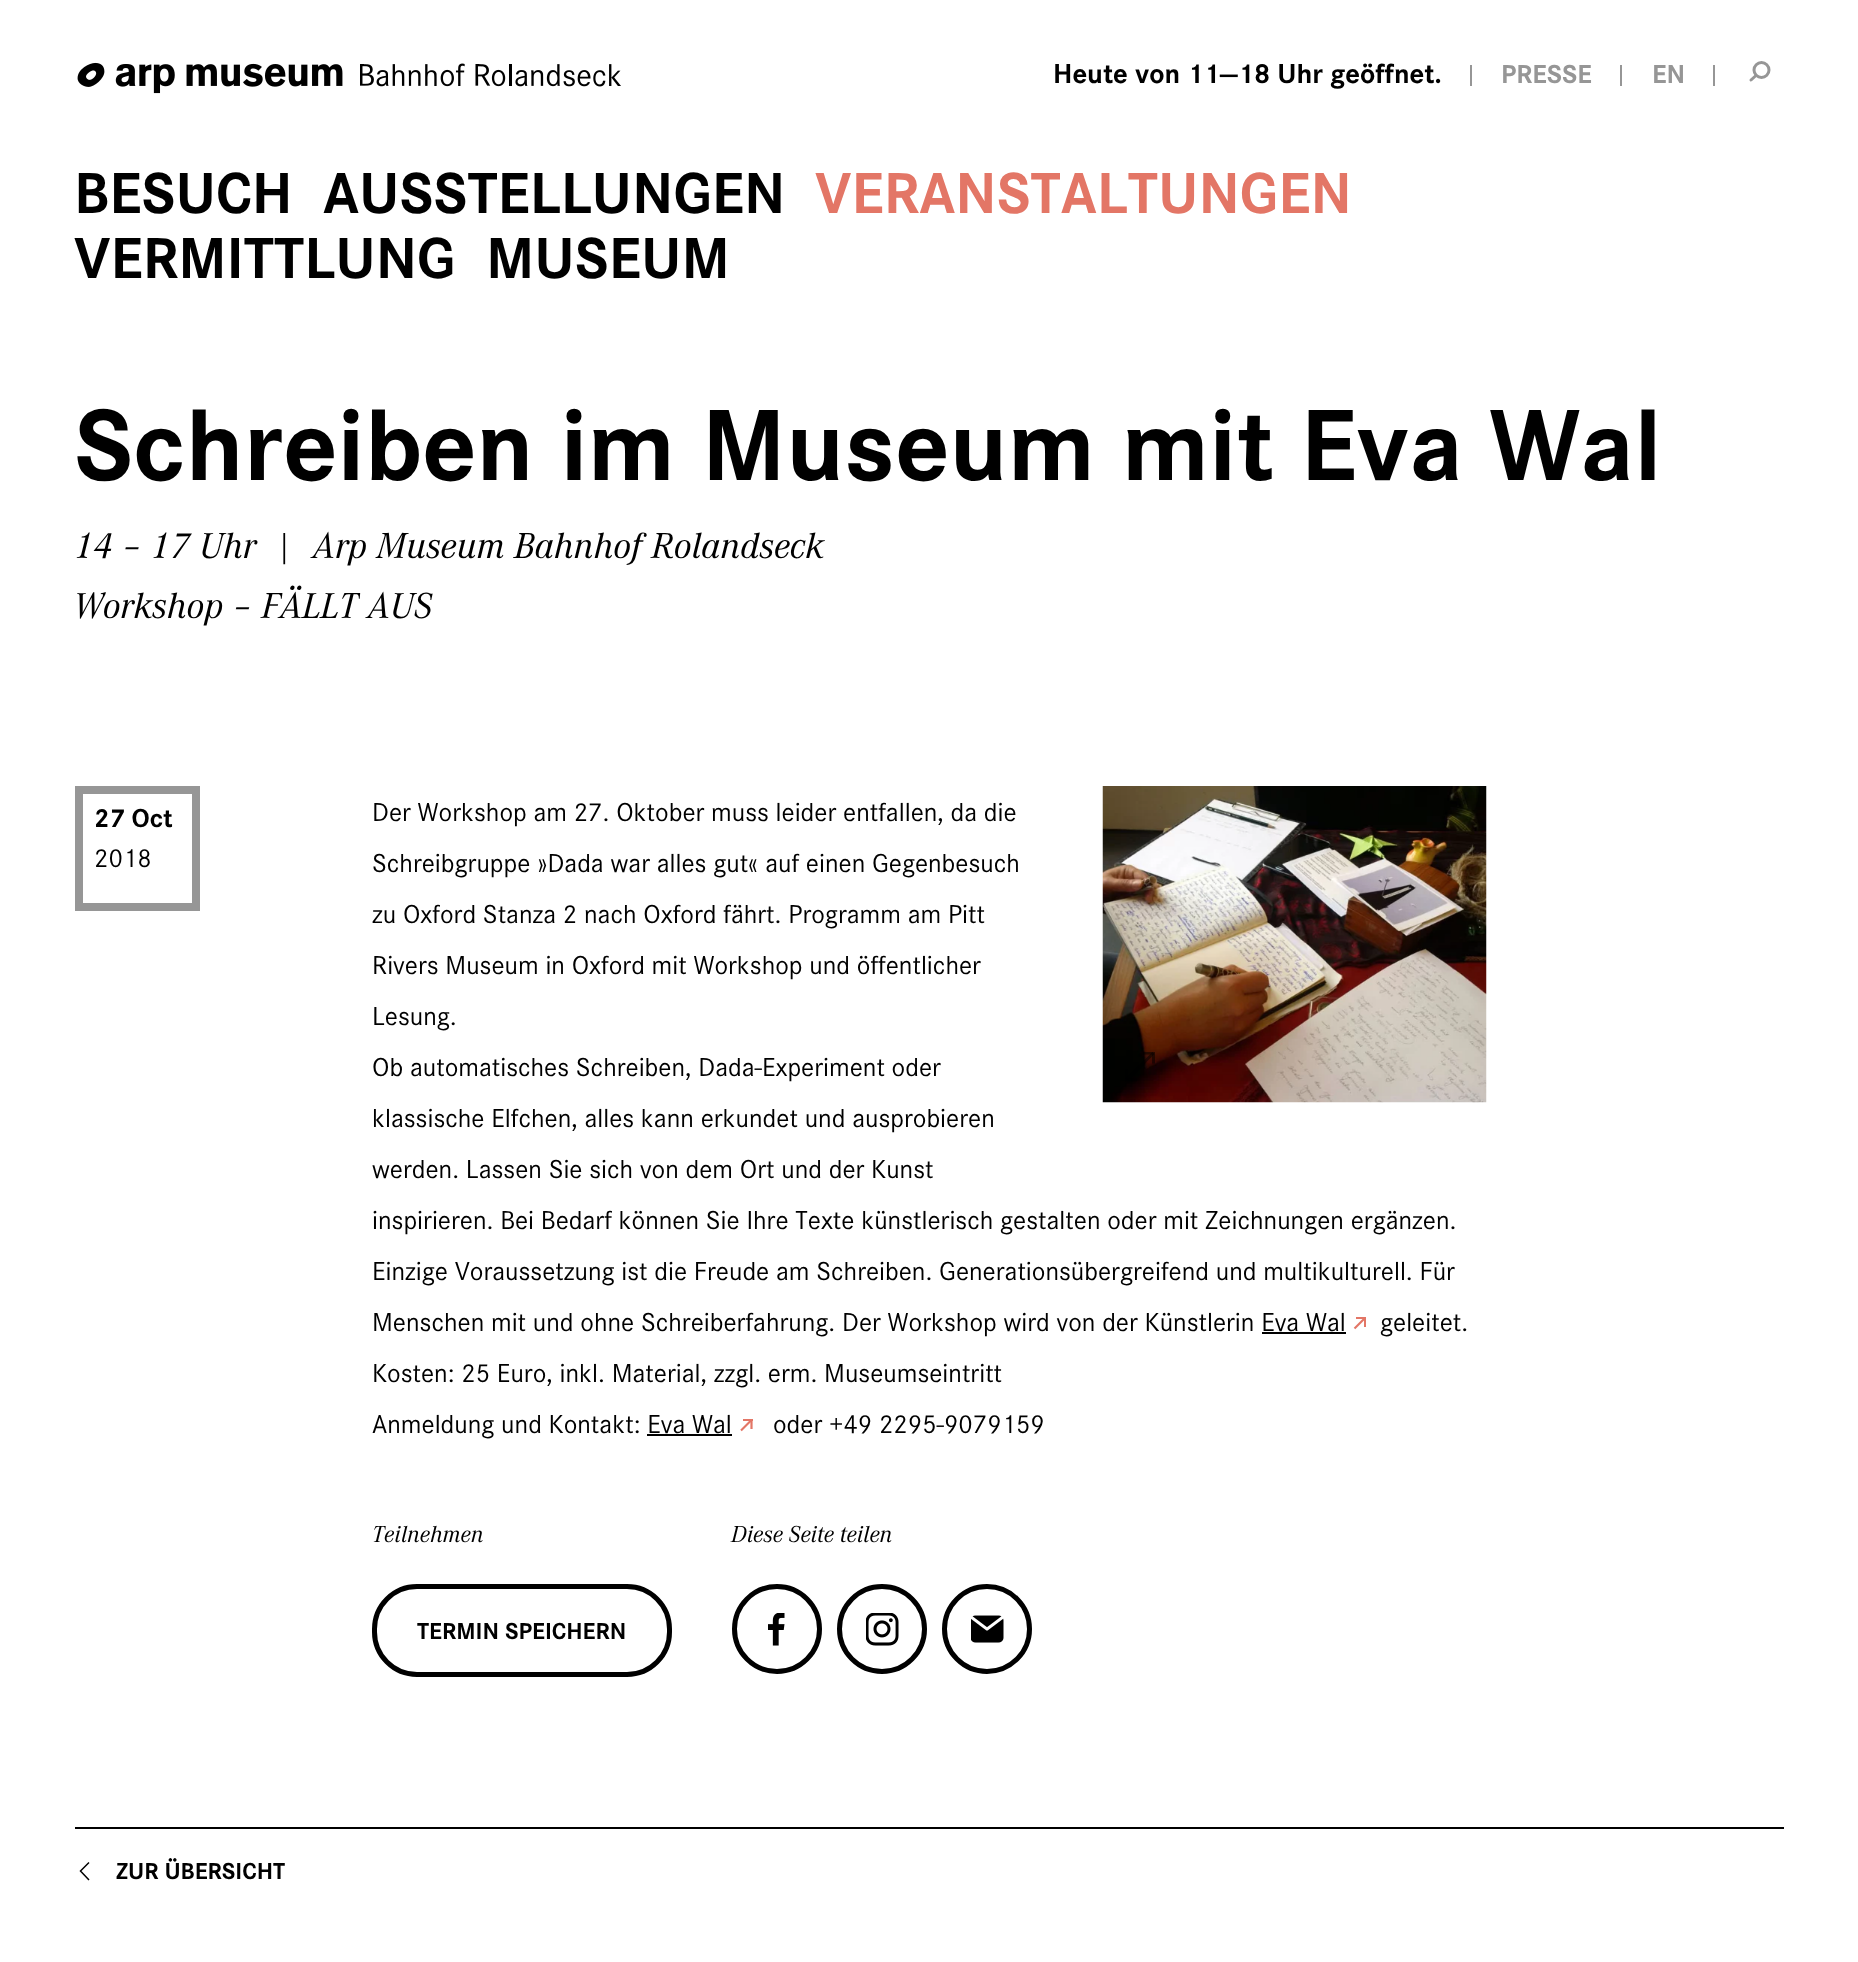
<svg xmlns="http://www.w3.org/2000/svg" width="1858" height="1962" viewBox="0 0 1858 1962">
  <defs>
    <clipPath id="clip1"><path d="M1125 1052h30v30H1125z"/></clipPath>
  </defs>
  <rect width="100%" height="100%" fill="#fff"/>
  <image x="77" y="62" width="266" height="32" href="img/1.png"/>
  <image x="360" y="63" width="261" height="24" href="img/2.png"/>
  <path d="M1470 65h2v21H1470z" fill="#969696"/>
  <path d="M1620 65h2v21H1620z" fill="#969696"/>
  <path d="M1713 65h2v21H1713z" fill="#969696"/>
  <circle cx="1761.5" cy="70" r="7.5" fill="none" stroke="#969696" stroke-width="3"/>
  <path d="M1756 75.5L1751 80" fill="none" stroke="#969696" stroke-width="3" stroke-linecap="round"/>
  <path d="M79 790h117v117H79z" fill="none" stroke="#969696" stroke-width="8"/>
  <image x="1102" y="786" width="385" height="317" href="img/3.png"/>
  <path d="M1126.5 1069.5V1080H1137" fill="none" stroke="#00000080" stroke-width="3"/>
  <path d="M1126.5 1079.5L1153.5 1053" fill="none" stroke="#00000080" stroke-width="3"/>
  <g clip-path="url(#clip1)">
    <path d="M1153.5 1063.5V1053H1143" fill="none" stroke="#00000080" stroke-width="3"/>
  </g>
  <path d="M1354.5 1328.5L1365 1318" fill="none" stroke="#e37666" stroke-width="2.2"/>
  <path d="M1356 1317h10v2H1356z" fill="#e37666"/>
  <path d="M1364 1317h2v10H1364z" fill="#e37666"/>
  <path d="M1262 1332h84v2H1262z" fill="#000"/>
  <path d="M741 1430.5L751.5 1420" fill="none" stroke="#e37666" stroke-width="2.2"/>
  <path d="M743 1419h10v2H743z" fill="#e37666"/>
  <path d="M751.5 1429V1419" fill="none" stroke="#e37666" stroke-width="2.2"/>
  <path d="M647 1434h85v2H647z" fill="#000"/>
  <rect x="374.5" y="1586.5" width="295" height="88" rx="42.5" fill="none" stroke="#000" stroke-width="5"/>
  <circle cx="777" cy="1629" r="42.5" fill="none" stroke="#000" stroke-width="5"/>
  <image x="768" y="1613" width="17" height="33" href="img/4.png"/>
  <circle cx="882" cy="1629" r="42.5" fill="none" stroke="#000" stroke-width="5"/>
  <image x="866" y="1613" width="33" height="33" href="img/5.png"/>
  <circle cx="987" cy="1629" r="42.5" fill="none" stroke="#000" stroke-width="5"/>
  <image x="971" y="1615" width="33" height="28" href="img/6.png"/>
  <path d="M75 1827h1709v2H75z" fill="#000"/>
  <path d="M89 1862.5L80.5 1871L89 1880" fill="none" stroke="#000" stroke-width="1.5"/>
  <text x="1053" y="83" font-family="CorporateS" font-size="28.5" font-weight="bold" fill="#000">Heute von 11—18 Uhr geöffnet.</text>
  <g font-family="CorporateS" font-size="27" font-weight="bold" fill="#969696">
    <text x="1501" y="83">PRESSE</text>
    <text x="1652" y="83">EN</text>
  </g>
  <g font-family="CorporateS" font-size="60" font-weight="bold" fill="#000">
    <text x="74" y="213">BESUCH</text>
    <text x="323" y="213">AUSSTELLUNGEN</text>
  </g>
  <text x="815" y="213" font-family="CorporateS" font-size="60" font-weight="bold" fill="#e37666">VERANSTALTUNGEN</text>
  <g font-family="CorporateS" font-size="60" font-weight="bold" fill="#000">
    <text x="74" y="278">VERMITTLUNG</text>
    <text x="486" y="278">MUSEUM</text>
  </g>
  <text x="74" y="480" font-family="CorporateS" font-size="105" font-weight="bold" fill="#000">Schreiben im Museum mit Eva Wal</text>
  <g font-family="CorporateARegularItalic" font-size="37.5" fill="#000">
    <text x="74" y="558" xml:space="preserve">14 – 17 Uhr  |  Arp Museum Bahnhof Rolandseck</text>
    <text x="74" y="618">Workshop – FÄLLT AUS</text>
  </g>
  <text x="94" y="827" font-family="CorporateS" font-size="27" font-weight="bold" fill="#000">27 Oct</text>
  <g font-family="CorporateS" font-size="27" fill="#000">
    <text x="94" y="867">2018</text>
    <text x="372" y="821">Der Workshop am 27. Oktober muss leider entfallen, da die</text>
    <text x="372" y="872">Schreibgruppe »Dada war alles gut« auf einen Gegenbesuch</text>
    <text x="372" y="923">zu Oxford Stanza 2 nach Oxford fährt. Programm am Pitt</text>
    <text x="372" y="974">Rivers Museum in Oxford mit Workshop und öffentlicher</text>
    <text x="372" y="1025">Lesung.</text>
    <text x="372" y="1076">Ob automatisches Schreiben, Dada-Experiment oder</text>
    <text x="372" y="1127">klassische Elfchen, alles kann erkundet und ausprobieren</text>
    <text x="372" y="1178">werden. Lassen Sie sich von dem Ort und der Kunst</text>
    <text x="372" y="1229">inspirieren. Bei Bedarf können Sie Ihre Texte künstlerisch gestalten oder mit Zeichnungen ergänzen.</text>
    <text x="372" y="1280">Einzige Voraussetzung ist die Freude am Schreiben. Generationsübergreifend und multikulturell. Für</text>
    <text x="372" y="1331">Menschen mit und ohne Schreiberfahrung. Der Workshop wird von der Künstlerin Eva Wal</text>
    <text x="1380" y="1331">geleitet.</text>
    <text x="372" y="1382">Kosten: 25 Euro, inkl. Material, zzgl. erm. Museumseintritt</text>
    <text x="372" y="1433">Anmeldung und Kontakt: Eva Wal</text>
    <text x="773" y="1433">oder +49 2295-9079159</text>
  </g>
  <text x="372" y="1542" font-family="CorporateARegularItalic" font-size="24" fill="#000">Teilnehmen</text>
  <text x="417" y="1639" font-family="CorporateS" font-size="24" font-weight="bold" fill="#000">TERMIN SPEICHERN</text>
  <text x="731" y="1542" font-family="CorporateARegularItalic" font-size="24" fill="#000">Diese Seite teilen</text>
  <text x="116" y="1879" font-family="CorporateS" font-size="24" font-weight="bold" fill="#000">ZUR ÜBERSICHT</text>
</svg>
